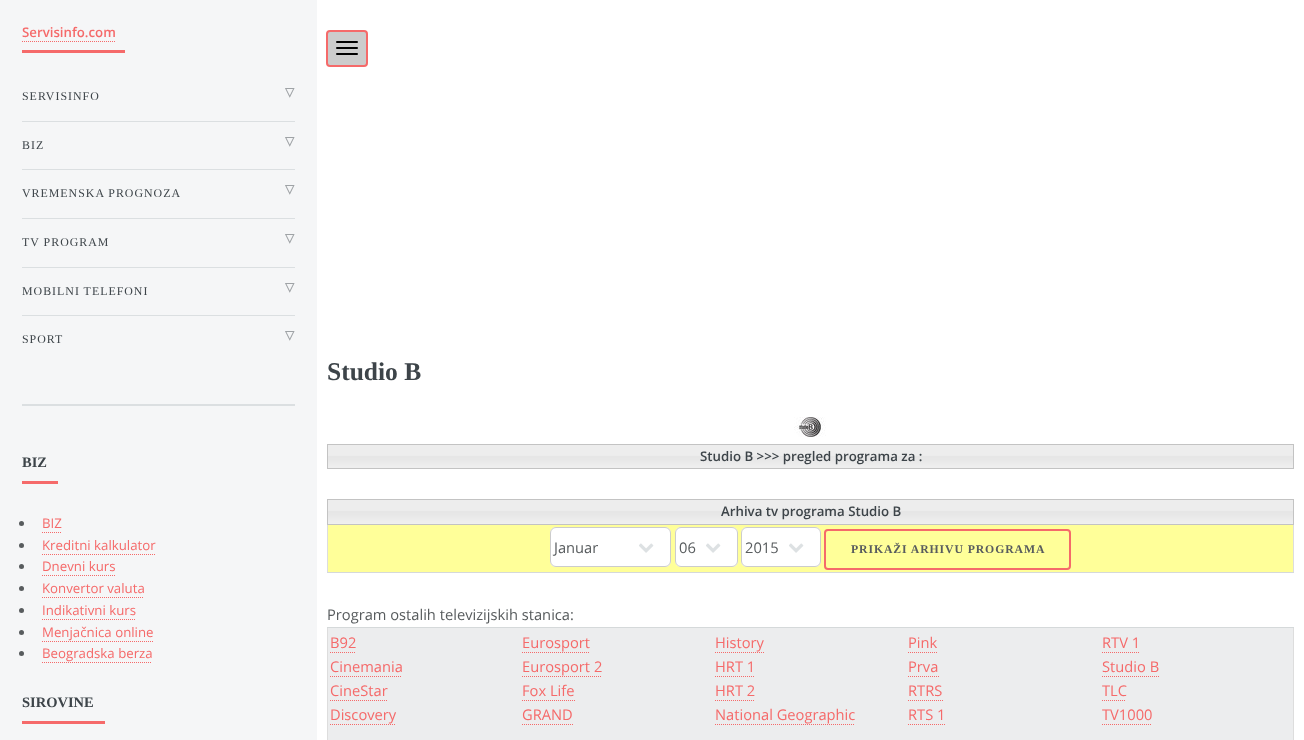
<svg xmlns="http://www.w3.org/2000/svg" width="1304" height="740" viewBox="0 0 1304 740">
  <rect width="100%" height="100%" fill="#fff"/>
  <path d="M0 0h317v740H0z" fill="#f5f6f7"/>
  <path d="M22 404h273v2H22z" fill="#dbdfe1"/>
  <path d="M22 50h103v3H22z" fill="#f56a6a"/>
  <path d="M22 41.5H115" fill="none" stroke="#f56a6a" stroke-dasharray="1 1"/>
  <path d="M22 121h273v1H22z" fill="#dbdfe1"/>
  <path d="M22 169h273v1H22z" fill="#dbdfe1"/>
  <path d="M22 218h273v1H22z" fill="#dbdfe1"/>
  <path d="M22 267h273v1H22z" fill="#dbdfe1"/>
  <path d="M22 315h273v1H22z" fill="#dbdfe1"/>
  <path d="M22 481h36v3H22z" fill="#f56a6a"/>
  <circle cx="21.5" cy="523.5" r="2.5" fill="#585c5e"/>
  <path d="M42 532.5H62" fill="none" stroke="#f56a6a" stroke-dasharray="1 1"/>
  <circle cx="21.5" cy="545.5" r="2.5" fill="#585c5e"/>
  <path d="M42 554.5H155" fill="none" stroke="#f56a6a" stroke-dasharray="1 1"/>
  <circle cx="21.5" cy="566.5" r="2.5" fill="#585c5e"/>
  <path d="M42 575.5H115" fill="none" stroke="#f56a6a" stroke-dasharray="1 1"/>
  <circle cx="21.5" cy="588.5" r="2.5" fill="#585c5e"/>
  <path d="M42 597.5H144" fill="none" stroke="#f56a6a" stroke-dasharray="1 1"/>
  <circle cx="21.5" cy="610.5" r="2.5" fill="#585c5e"/>
  <path d="M42 619.5H135" fill="none" stroke="#f56a6a" stroke-dasharray="1 1"/>
  <circle cx="21.5" cy="632.5" r="2.5" fill="#585c5e"/>
  <path d="M42 641.5H153" fill="none" stroke="#f56a6a" stroke-dasharray="1 1"/>
  <circle cx="21.5" cy="653.5" r="2.5" fill="#585c5e"/>
  <path d="M42 662.5H152" fill="none" stroke="#f56a6a" stroke-dasharray="1 1"/>
  <path d="M22 721h83v3H22z" fill="#f56a6a"/>
  <rect x="327" y="31" width="40" height="35" rx="3" fill="#ccc" stroke="#f56a6a" stroke-width="2"/>
  <rect x="336" y="41" width="22" height="2" rx="1" fill="#000"/>
  <rect x="336" y="47" width="22" height="2" rx="1" fill="#000"/>
  <rect x="336" y="53" width="22" height="2" rx="1" fill="#000"/>
  <image x="794" y="417" width="32" height="20" href="img/1.png"/>
  <image x="328" y="445" width="965" height="23" href="img/2.png"/>
  <path d="M327 444h967v1H327z" fill="#c3c3c3"/>
  <path d="M1293 444h1v25H1293z" fill="#c3c3c3"/>
  <path d="M327 468h967v1H327z" fill="#c3c3c3"/>
  <path d="M327 444h1v25H327z" fill="#c3c3c3"/>
  <path d="M328 525h965v47H328z" fill="#ff9"/>
  <path d="M1293 525h1v48H1293z" fill="#ddd"/>
  <path d="M327 525h1v48H327z" fill="#ddd"/>
  <image x="328" y="500" width="965" height="24" href="img/3.png"/>
  <path d="M327 499h967v1H327z" fill="#c3c3c3"/>
  <path d="M1293 499h1v26H1293z" fill="#c3c3c3"/>
  <path d="M327 524h967v1H327z" fill="#c3c3c3"/>
  <path d="M327 499h1v26H327z" fill="#c3c3c3"/>
  <path d="M327 572h967v1H327z" fill="#d5d9da"/>
  <rect x="550" y="527" width="121" height="40" rx="6" fill="#fff"/>
  <image x="639" y="543" width="15" height="10" href="img/4.png"/>
  <rect x="550.5" y="527.5" width="120" height="39" rx="5.5" fill="none" stroke="#ccc"/>
  <rect x="675" y="527" width="63" height="40" rx="6" fill="#fff"/>
  <image x="706" y="543" width="15" height="10" href="img/4.png"/>
  <rect x="675.5" y="527.5" width="62" height="39" rx="5.5" fill="none" stroke="#ccc"/>
  <rect x="741" y="527" width="80" height="40" rx="6" fill="#fff"/>
  <image x="789" y="543" width="15" height="10" href="img/4.png"/>
  <rect x="741.5" y="527.5" width="79" height="39" rx="5.5" fill="none" stroke="#ccc"/>
  <rect x="825" y="530" width="245" height="39" rx="3" fill="none" stroke="#f56a6a" stroke-width="2"/>
  <path d="M1293 627h1v113H1293z" fill="#ddd"/>
  <path d="M327 627h1v113H327z" fill="#ddd"/>
  <path d="M328 628h965v112H328z" fill="#ecedee"/>
  <path d="M327 627h967v1H327z" fill="#d5d9da"/>
  <path d="M330 652.5H356" fill="none" stroke="#f56a6a" stroke-dasharray="1 1"/>
  <path d="M330 676.5H402" fill="none" stroke="#f56a6a" stroke-dasharray="1 1"/>
  <path d="M330 700.5H387" fill="none" stroke="#f56a6a" stroke-dasharray="1 1"/>
  <path d="M330 724.5H396" fill="none" stroke="#f56a6a" stroke-dasharray="1 1"/>
  <path d="M522 652.5H590" fill="none" stroke="#f56a6a" stroke-dasharray="1 1"/>
  <path d="M522 676.5H602" fill="none" stroke="#f56a6a" stroke-dasharray="1 1"/>
  <path d="M522 700.5H575" fill="none" stroke="#f56a6a" stroke-dasharray="1 1"/>
  <path d="M522 724.5H573" fill="none" stroke="#f56a6a" stroke-dasharray="1 1"/>
  <path d="M715 652.5H764" fill="none" stroke="#f56a6a" stroke-dasharray="1 1"/>
  <path d="M715 676.5H755" fill="none" stroke="#f56a6a" stroke-dasharray="1 1"/>
  <path d="M715 700.5H755" fill="none" stroke="#f56a6a" stroke-dasharray="1 1"/>
  <path d="M715 724.5H855" fill="none" stroke="#f56a6a" stroke-dasharray="1 1"/>
  <path d="M908 652.5H938" fill="none" stroke="#f56a6a" stroke-dasharray="1 1"/>
  <path d="M908 676.5H939" fill="none" stroke="#f56a6a" stroke-dasharray="1 1"/>
  <path d="M908 700.5H943" fill="none" stroke="#f56a6a" stroke-dasharray="1 1"/>
  <path d="M908 724.5H946" fill="none" stroke="#f56a6a" stroke-dasharray="1 1"/>
  <path d="M1102 652.5H1140" fill="none" stroke="#f56a6a" stroke-dasharray="1 1"/>
  <path d="M1102 676.5H1159" fill="none" stroke="#f56a6a" stroke-dasharray="1 1"/>
  <path d="M1102 700.5H1126" fill="none" stroke="#f56a6a" stroke-dasharray="1 1"/>
  <path d="M1102 724.5H1152" fill="none" stroke="#f56a6a" stroke-dasharray="1 1"/>
  <text x="22" y="37" font-family="Open Sans" font-size="13.25" font-weight="600" fill="#f56a6a">Servisinfo.com</text>
  <text x="22" y="100" font-family="Liberation Serif" font-size="11.9" letter-spacing="1" fill="#3d4449">SERVISINFO</text>
  <text x="285" y="96" font-family="DejaVu Sans" font-size="11.9" font-weight="bold" letter-spacing="1" fill="#9fa3a6">▽</text>
  <text x="22" y="149" font-family="Liberation Serif" font-size="11.9" letter-spacing="1" fill="#3d4449">BIZ</text>
  <text x="285" y="145" font-family="DejaVu Sans" font-size="11.9" font-weight="bold" letter-spacing="1" fill="#9fa3a6">▽</text>
  <text x="22" y="197" font-family="Liberation Serif" font-size="11.9" letter-spacing="1" fill="#3d4449">VREMENSKA PROGNOZA</text>
  <text x="285" y="193" font-family="DejaVu Sans" font-size="11.9" font-weight="bold" letter-spacing="1" fill="#9fa3a6">▽</text>
  <text x="22" y="246" font-family="Liberation Serif" font-size="11.9" letter-spacing="1" fill="#3d4449">TV PROGRAM</text>
  <text x="285" y="242" font-family="DejaVu Sans" font-size="11.9" font-weight="bold" letter-spacing="1" fill="#9fa3a6">▽</text>
  <text x="22" y="295" font-family="Liberation Serif" font-size="11.9" letter-spacing="1" fill="#3d4449">MOBILNI TELEFONI</text>
  <text x="285" y="291" font-family="DejaVu Sans" font-size="11.9" font-weight="bold" letter-spacing="1" fill="#9fa3a6">▽</text>
  <text x="22" y="343" font-family="Liberation Serif" font-size="11.9" letter-spacing="1" fill="#3d4449">SPORT</text>
  <text x="285" y="339" font-family="DejaVu Sans" font-size="11.9" font-weight="bold" letter-spacing="1" fill="#9fa3a6">▽</text>
  <text x="22" y="467" font-family="Liberation Serif" font-size="14.5" font-weight="bold" fill="#3d4449">BIZ</text>
  <g font-family="Open Sans" font-size="13.25" fill="#f56a6a">
    <text x="42" y="528">BIZ</text>
    <text x="42" y="550">Kreditni kalkulator</text>
    <text x="42" y="571">Dnevni kurs</text>
    <text x="42" y="593">Konvertor valuta</text>
    <text x="42" y="615">Indikativni kurs</text>
    <text x="42" y="637">Menjačnica online</text>
    <text x="42" y="658">Beogradska berza</text>
  </g>
  <text x="22" y="707" font-family="Liberation Serif" font-size="14.5" font-weight="bold" fill="#3d4449">SIROVINE</text>
  <text x="327" y="380" font-family="Liberation Serif" font-size="25.5" font-weight="bold" fill="#3d4449">Studio B</text>
  <g font-family="Open Sans" font-size="13.25" font-weight="600" fill="#3d4449">
    <text x="700" y="461">Studio B &gt;&gt;&gt; pregled programa za :</text>
    <text x="721" y="516">Arhiva tv programa Studio B</text>
  </g>
  <g font-family="Open Sans" font-size="14.7" fill="#585c5e">
    <text x="554" y="553">Januar</text>
    <text x="679" y="553">06</text>
    <text x="745" y="553">2015</text>
  </g>
  <text x="851" y="553" font-family="Liberation Serif" font-size="11.75" font-weight="bold" letter-spacing="0.9" fill="#585c5e">PRIKAŽI ARHIVU PROGRAMA</text>
  <text x="327" y="620" font-family="Open Sans" font-size="14.7" fill="#585c5e">Program ostalih televizijskih stanica:</text>
  <g font-family="Open Sans" font-size="14.7" fill="#f56a6a">
    <text x="330" y="648">B92</text>
    <text x="330" y="672">Cinemania</text>
    <text x="330" y="696">CineStar</text>
    <text x="330" y="720">Discovery</text>
    <text x="522" y="648">Eurosport</text>
    <text x="522" y="672">Eurosport 2</text>
    <text x="522" y="696">Fox Life</text>
    <text x="522" y="720">GRAND</text>
    <text x="715" y="648">History</text>
    <text x="715" y="672">HRT 1</text>
    <text x="715" y="696">HRT 2</text>
    <text x="715" y="720">National Geographic</text>
    <text x="908" y="648">Pink</text>
    <text x="908" y="672">Prva</text>
    <text x="908" y="696">RTRS</text>
    <text x="908" y="720">RTS 1</text>
    <text x="1102" y="648">RTV 1</text>
    <text x="1102" y="672">Studio B</text>
    <text x="1102" y="696">TLC</text>
    <text x="1102" y="720">TV1000</text>
  </g>
</svg>
